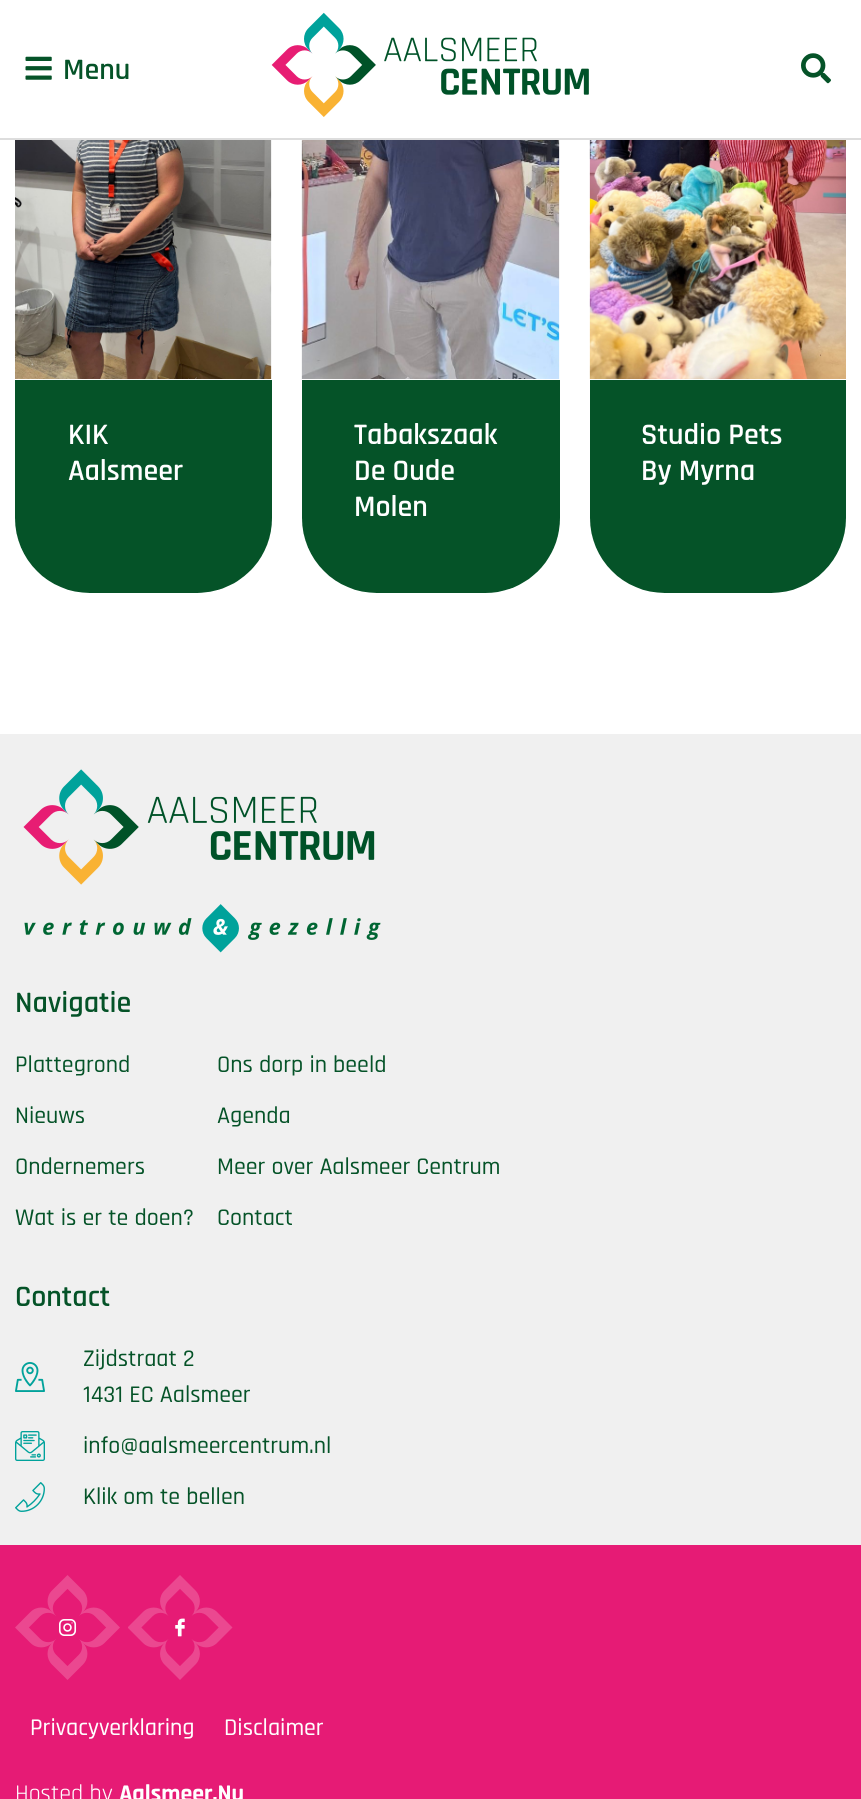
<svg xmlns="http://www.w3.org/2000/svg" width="861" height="1799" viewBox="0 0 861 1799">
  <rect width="100%" height="100%" fill="#fff"/>
  <path d="M0 138h861v2H0z" fill="#ddd"/>
  <image x="25" y="56" width="27" height="24" href="img/1.png"/>
  <image x="271" y="12" width="318" height="105" href="img/2.png"/>
  <image x="801" y="53" width="30" height="31" href="img/3.png"/>
  <image x="15" y="140" width="257" height="239" href="img/4.png"/>
  <path d="M15 380H272V518C272 559.5 238.5 593 197 593H90C48.5 593 15 559.5 15 518Z" fill="#055328"/>
  <image x="301" y="140" width="259" height="239" href="img/5.png"/>
  <path d="M302 380H560V518C560 559.5 526.5 593 485 593H377C335.5 593 302 559.5 302 518Z" fill="#055328"/>
  <image x="589" y="140" width="257" height="239" href="img/6.png"/>
  <path d="M590 380H846V518C846 559.5 812.5 593 771 593H665C623.5 593 590 559.5 590 518Z" fill="#055328"/>
  <path d="M0 734h861v811H0z" fill="#f0f0f0"/>
  <image x="23" y="769" width="352" height="116" href="img/7.png"/>
  <image x="24" y="904" width="357" height="49" href="img/8.png"/>
  <image x="15" y="1362" width="30" height="30" href="img/9.png"/>
  <image x="15" y="1431" width="30" height="30" href="img/10.png"/>
  <image x="15" y="1482" width="30" height="30" href="img/11.png"/>
  <path d="M0 1545h861v254H0z" fill="#e61b75"/>
  <image x="15" y="1575" width="105" height="105" href="img/12.png"/>
  <image x="128" y="1575" width="105" height="105" href="img/13.png"/>
  <text x="63" y="79" font-family="Rajdhani" font-size="30" font-weight="600" fill="#055328">Menu</text>
  <g font-family="Rajdhani" font-size="30" font-weight="600" fill="#fff">
    <text x="68" y="444">KIK</text>
    <text x="68" y="480">Aalsmeer</text>
    <text x="354" y="444">Tabakszaak</text>
    <text x="354" y="480">De Oude</text>
    <text x="354" y="516">Molen</text>
    <text x="641" y="444">Studio Pets</text>
    <text x="641" y="480">By Myrna</text>
  </g>
  <text x="15" y="1012" font-family="Rajdhani" font-size="30" font-weight="600" fill="#055328">Navigatie</text>
  <g font-family="Rajdhani" font-size="24" font-weight="500" fill="#055328">
    <text x="15" y="1072">Plattegrond</text>
    <text x="15" y="1123">Nieuws</text>
    <text x="15" y="1174">Ondernemers</text>
    <text x="15" y="1225">Wat is er te doen?</text>
    <text x="217" y="1072">Ons dorp in beeld</text>
    <text x="217" y="1123">Agenda</text>
    <text x="217" y="1174">Meer over Aalsmeer Centrum</text>
    <text x="217" y="1225">Contact</text>
  </g>
  <text x="15" y="1306" font-family="Rajdhani" font-size="30" font-weight="600" fill="#055328">Contact</text>
  <g font-family="Rajdhani" font-size="24" font-weight="500" fill="#055328">
    <text x="83" y="1366">Zijdstraat 2</text>
    <text x="83" y="1402">1431 EC Aalsmeer</text>
    <text x="83" y="1453">info@aalsmeercentrum.nl</text>
    <text x="83" y="1504">Klik om te bellen</text>
  </g>
  <g font-family="Rajdhani" font-size="24" font-weight="500" fill="#fff">
    <text x="30" y="1735">Privacyverklaring</text>
    <text x="224" y="1735">Disclaimer</text>
  </g>
  <text x="15" y="1801" font-family="Rajdhani" font-size="24" fill="#fff">Hosted by</text>
  <text x="119" y="1801" font-family="Rajdhani" font-size="24" font-weight="bold" fill="#fff">Aalsmeer.Nu</text>
</svg>
